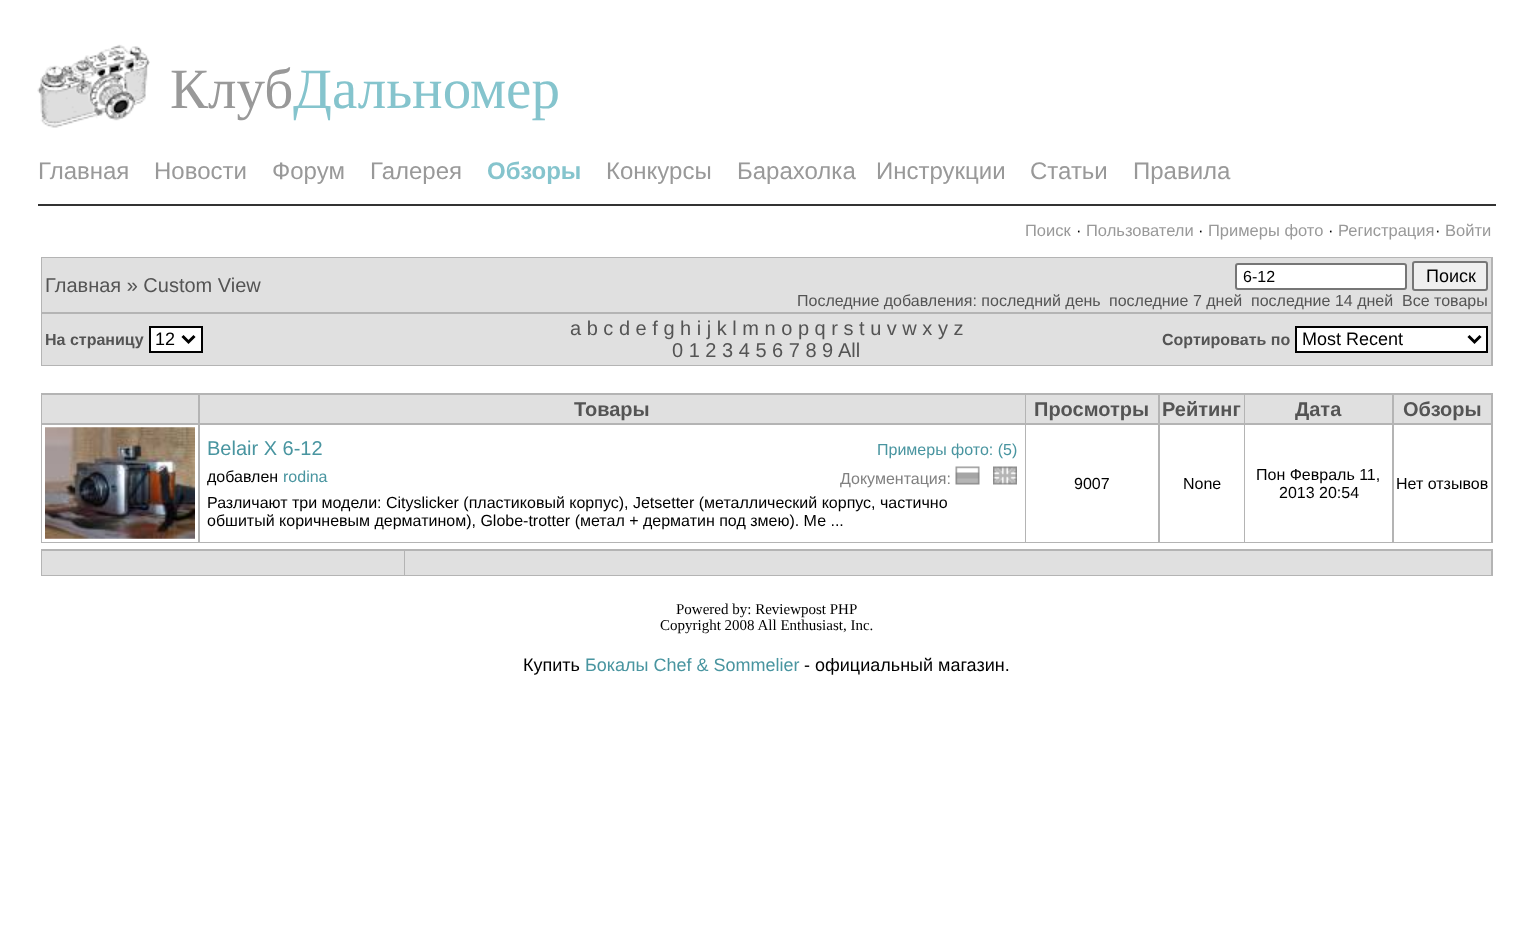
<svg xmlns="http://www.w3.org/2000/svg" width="1532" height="949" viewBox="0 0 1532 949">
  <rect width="100%" height="100%" fill="#fff"/>
  <image x="37" y="44" width="113" height="84" href="img/1.png"/>
  <path d="M38 204h1458v2H38z" fill="#333"/>
  <path d="M41 257h1452v109H41z" fill="#b4b4b4"/>
  <path d="M42 258h1449v54H42z" fill="#e0e0e0"/>
  <rect x="1236" y="264" width="170" height="25" rx="2" fill="#fff" stroke="#767676" stroke-width="2"/>
  <rect x="1413" y="262" width="74" height="28" rx="2" fill="#efefef" stroke="#767676" stroke-width="2"/>
  <path d="M42 314h1449v51H42z" fill="#e0e0e0"/>
  <path d="M150 327h52v25H150z" fill="#fff" stroke="#000" stroke-width="2"/>
  <path d="M182.5 336L188.5 342L194.5 336" fill="none" stroke="#000" stroke-width="3"/>
  <path d="M1296 327h191v25H1296z" fill="#fff" stroke="#000" stroke-width="2"/>
  <path d="M1468.5 336L1474.5 342L1480.5 336" fill="none" stroke="#000" stroke-width="3"/>
  <path d="M41 393h1452v150H41z" fill="#b4b4b4"/>
  <path d="M42 395h156v28H42z" fill="#e0e0e0"/>
  <path d="M200 395h825v28H200z" fill="#e0e0e0"/>
  <path d="M1026 395h132v28H1026z" fill="#e0e0e0"/>
  <path d="M1160 395h84v28H1160z" fill="#e0e0e0"/>
  <path d="M1245 395h147v28H1245z" fill="#e0e0e0"/>
  <path d="M1394 395h97v28H1394z" fill="#e0e0e0"/>
  <path d="M42 425h156v117H42z" fill="#fff"/>
  <image x="45" y="427" width="150" height="112" href="img/2.png"/>
  <image x="45" y="427" width="150" height="112" href="img/3.png"/>
  <path d="M200 425h825v117H200z" fill="#fff"/>
  <image x="955" y="466" width="25" height="19" href="img/4.png"/>
  <image x="993" y="466" width="24" height="19" href="img/5.png"/>
  <path d="M1026 425h132v117H1026z" fill="#fff"/>
  <path d="M1160 425h84v117H1160z" fill="#fff"/>
  <path d="M1245 425h147v117H1245z" fill="#fff"/>
  <path d="M1394 425h97v117H1394z" fill="#fff"/>
  <path d="M41 549h1452v27H41z" fill="#b4b4b4"/>
  <path d="M42 551h362v24H42z" fill="#e0e0e0"/>
  <path d="M405 551h1086v24H405z" fill="#e0e0e0"/>
  <text x="170" y="108" font-family="Liberation Serif" font-size="57" fill="#999">Клуб</text>
  <text x="293" y="108" font-family="Liberation Serif" font-size="57" fill="#85c4cd">Дальномер</text>
  <g font-family="Liberation Sans" font-size="24" fill="#999">
    <text x="38" y="179">Главная</text>
    <text x="154" y="179">Новости</text>
    <text x="272" y="179">Форум</text>
    <text x="370" y="179">Галерея</text>
  </g>
  <text x="487" y="179" font-family="Liberation Sans" font-size="24" font-weight="bold" fill="#85c4cd">Обзоры</text>
  <g font-family="Liberation Sans" font-size="24" fill="#999">
    <text x="606" y="179">Конкурсы</text>
    <text x="737" y="179">Барахолка</text>
    <text x="876" y="179">Инструкции</text>
    <text x="1030" y="179">Статьи</text>
    <text x="1133" y="179">Правила</text>
  </g>
  <text x="1025" y="236" font-family="Liberation Sans" font-size="16.5" fill="#999">Поиск</text>
  <text x="1076" y="236" font-family="Liberation Sans" font-size="16.5" fill="#000">·</text>
  <text x="1086" y="236" font-family="Liberation Sans" font-size="16.5" fill="#999">Пользователи</text>
  <text x="1198" y="236" font-family="Liberation Sans" font-size="16.5" fill="#000">·</text>
  <text x="1208" y="236" font-family="Liberation Sans" font-size="16.5" fill="#999">Примеры фото</text>
  <text x="1328" y="236" font-family="Liberation Sans" font-size="16.5" fill="#000">·</text>
  <text x="1338" y="236" font-family="Liberation Sans" font-size="16.5" fill="#999">Регистрация</text>
  <text x="1435" y="236" font-family="Liberation Sans" font-size="16.5" fill="#000">·</text>
  <text x="1445" y="236" font-family="Liberation Sans" font-size="16.5" fill="#999">Войти</text>
  <text x="45" y="292" font-family="Liberation Sans" font-size="20" fill="#545454">Главная » Custom View</text>
  <text x="1243" y="282" font-family="Liberation Sans" font-size="16" fill="#000">6-12</text>
  <text x="1426" y="282" font-family="Liberation Sans" font-size="18" fill="#000">Поиск</text>
  <g font-family="Liberation Sans" font-size="16" fill="#545454">
    <text x="797" y="306">Последние добавления: последний день</text>
    <text x="1109" y="306">последние 7 дней</text>
    <text x="1251" y="306">последние 14 дней</text>
    <text x="1402" y="306">Все товары</text>
  </g>
  <text x="45" y="345" font-family="Liberation Sans" font-size="16" font-weight="bold" fill="#545454">На страницу</text>
  <text x="155" y="345" font-family="Liberation Sans" font-size="18" fill="#000">12</text>
  <g font-family="Liberation Sans" font-size="20" fill="#545454">
    <text x="570" y="335">a b c d e f g h i j k l m n o p q r s t u v w x y z</text>
    <text x="672" y="357">0 1 2 3 4 5 6 7 8 9</text>
    <text x="838" y="357">All</text>
  </g>
  <text x="1162" y="345" font-family="Liberation Sans" font-size="16" font-weight="bold" fill="#545454">Сортировать по</text>
  <text x="1302" y="345" font-family="Liberation Sans" font-size="18" fill="#000">Most Recent</text>
  <g font-family="Liberation Sans" font-size="20" font-weight="bold" fill="#545454">
    <text x="574" y="416">Товары</text>
    <text x="1034" y="416">Просмотры</text>
    <text x="1162" y="416">Рейтинг</text>
    <text x="1295" y="416">Дата</text>
    <text x="1403" y="416">Обзоры</text>
  </g>
  <text x="207" y="455" font-family="Liberation Sans" font-size="20" fill="#4995a0">Belair X 6-12</text>
  <text x="877" y="455" font-family="Liberation Sans" font-size="16" fill="#4995a0">Примеры фото: (5)</text>
  <text x="207" y="482" font-family="Liberation Sans" font-size="16" fill="#000">добавлен</text>
  <text x="283" y="482" font-family="Liberation Sans" font-size="16" fill="#4995a0">rodina</text>
  <text x="840" y="484" font-family="Liberation Sans" font-size="16" fill="#808080">Документация:</text>
  <g font-family="Liberation Sans" font-size="16" fill="#000">
    <text x="207" y="508">Различают три модели: Cityslicker (пластиковый корпус), Jetsetter (металлический корпус, частично</text>
    <text x="207" y="526">обшитый коричневым дерматином), Globe-trotter (метал + дерматин под змею). Ме ...</text>
    <text x="1074" y="489">9007</text>
    <text x="1183" y="489">None</text>
    <text x="1256" y="480">Пон Февраль 11,</text>
    <text x="1279" y="498">2013 20:54</text>
    <text x="1396" y="489">Нет отзывов</text>
  </g>
  <g font-family="Liberation Serif" font-size="15" fill="#000">
    <text x="676" y="614">Powered by: Reviewpost PHP</text>
    <text x="660" y="630">Copyright 2008 All Enthusiast, Inc.</text>
  </g>
  <text x="523" y="671" font-family="Liberation Sans" font-size="18" fill="#000">Купить</text>
  <text x="585" y="671" font-family="Liberation Sans" font-size="18" fill="#4995a0">Бокалы Chef &amp; Sommelier</text>
  <text x="804" y="671" font-family="Liberation Sans" font-size="18" fill="#000">- официальный магазин.</text>
</svg>
